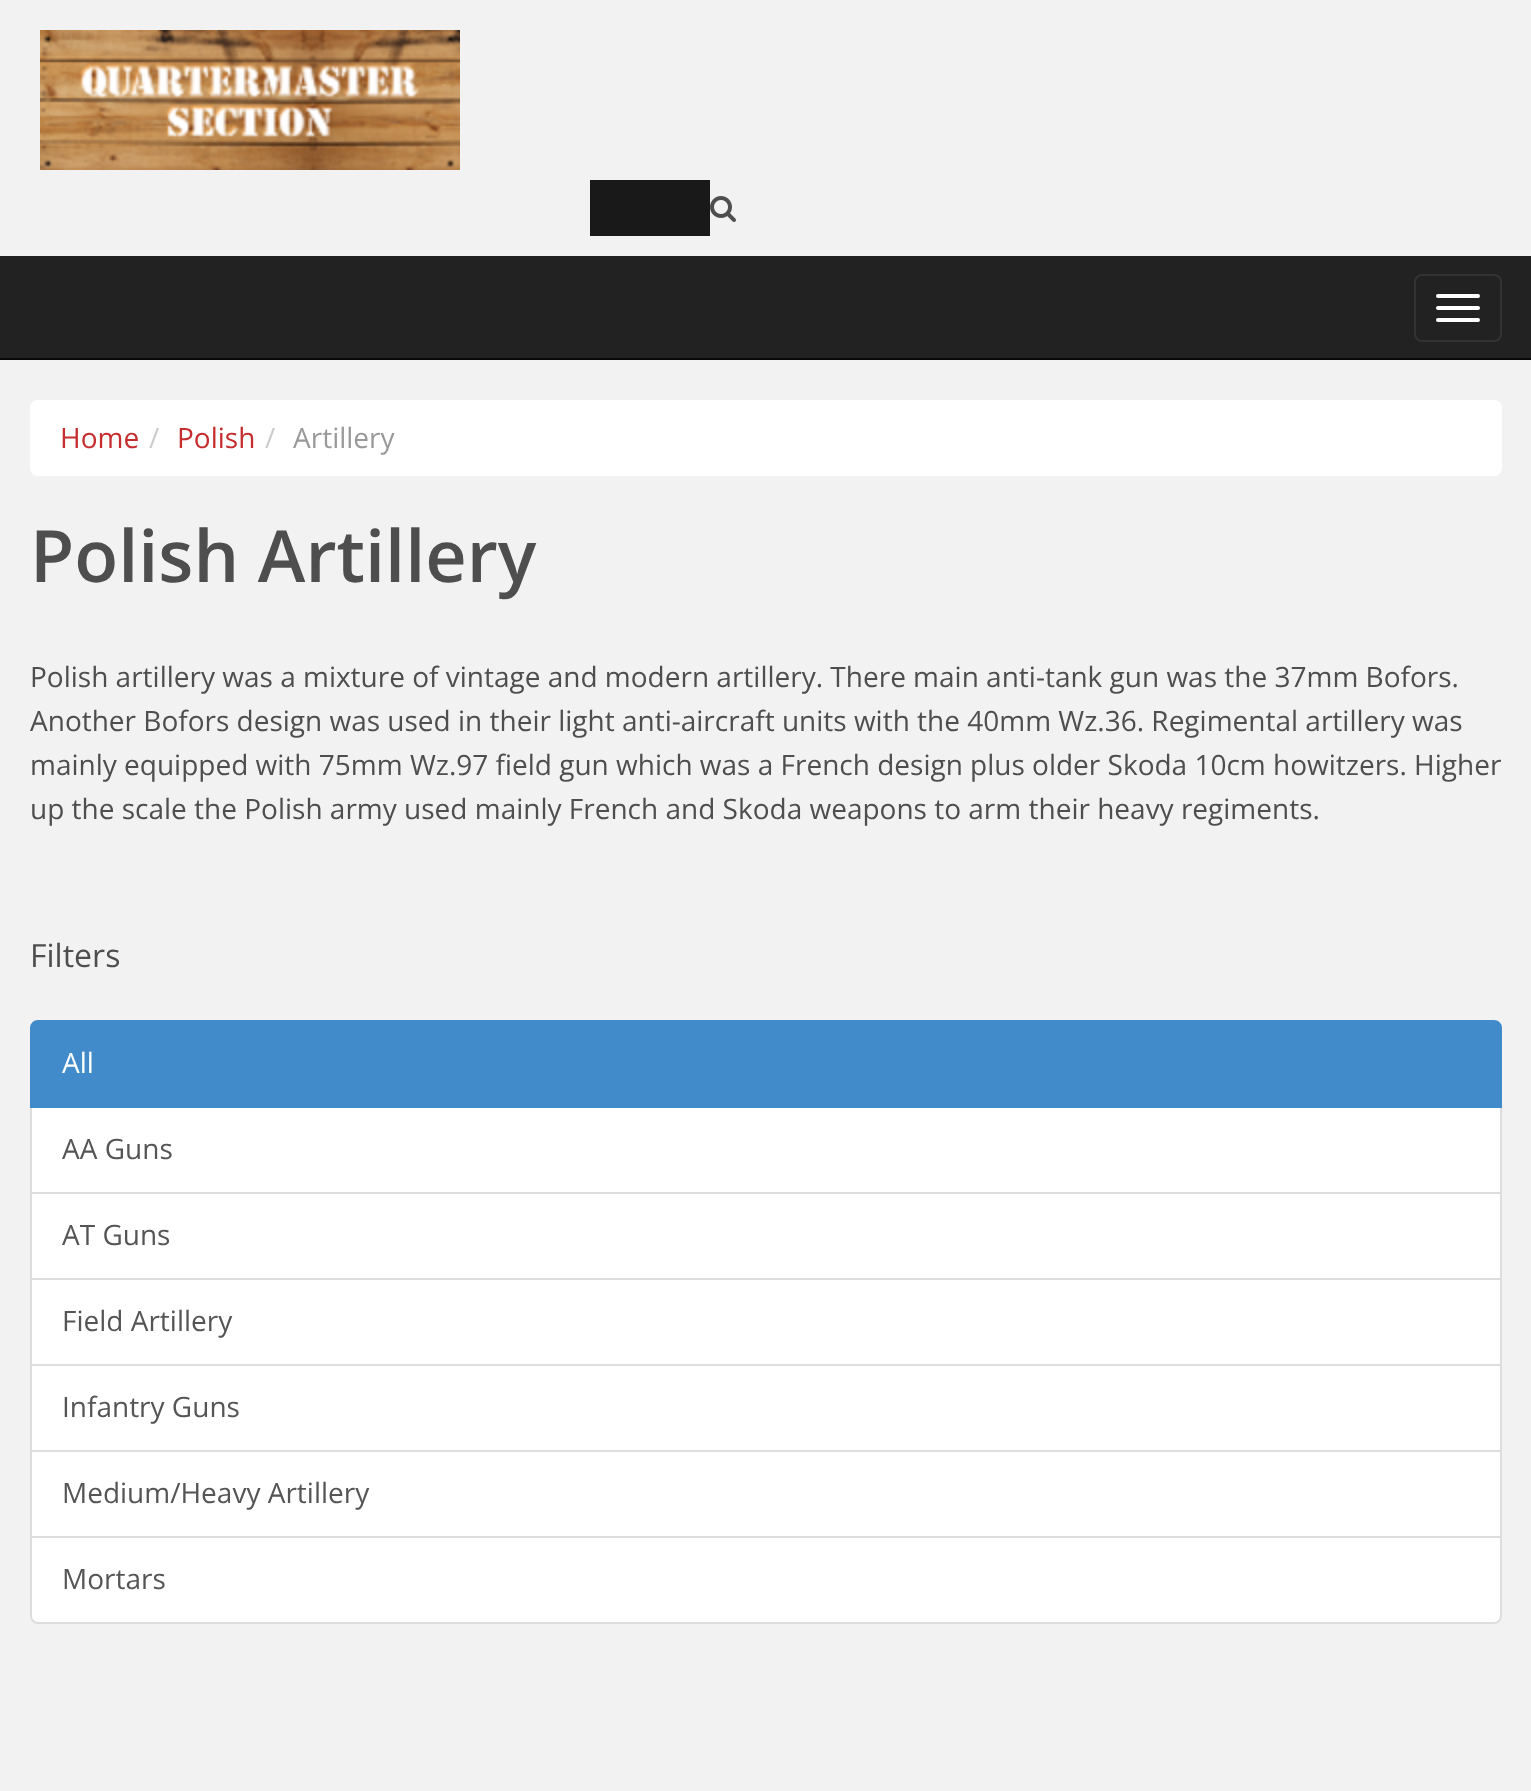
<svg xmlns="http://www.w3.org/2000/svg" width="1531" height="1791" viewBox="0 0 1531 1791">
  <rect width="100%" height="100%" fill="#f2f2f2"/>
  <path d="M0 256h1531v102H0z" fill="#222"/>
  <image x="40" y="30" width="420" height="140" href="img/1.png"/>
  <path d="M590 180h120v56H590z" fill="#191919"/>
  <image x="710" y="196" width="26" height="26" href="img/2.png"/>
  <path d="M0 358h1531v2H0z" fill="#080808"/>
  <rect x="1415" y="275" width="86" height="66" rx="7" fill="none" stroke="#333" stroke-width="2"/>
  <rect x="1436" y="294" width="44" height="4" rx="2" fill="#fff"/>
  <rect x="1436" y="306" width="44" height="4" rx="2" fill="#fff"/>
  <rect x="1436" y="318" width="44" height="4" rx="2" fill="#fff"/>
  <rect x="30" y="400" width="1472" height="76" rx="8" fill="#fff"/>
  <path d="M31 1107h1470v86H31z" fill="#fff" stroke="#ddd" stroke-width="2"/>
  <path d="M38 1021H1494C1498 1021 1501 1024 1501 1028V1107H31V1028C31 1024 34 1021 38 1021Z" fill="#428bca" stroke="#428bca" stroke-width="2"/>
  <path d="M31 1193h1470v86H31z" fill="#fff" stroke="#ddd" stroke-width="2"/>
  <path d="M31 1279h1470v86H31z" fill="#fff" stroke="#ddd" stroke-width="2"/>
  <path d="M31 1365h1470v86H31z" fill="#fff" stroke="#ddd" stroke-width="2"/>
  <path d="M31 1451h1470v86H31z" fill="#fff" stroke="#ddd" stroke-width="2"/>
  <path d="M31 1537H1501V1616C1501 1620 1498 1623 1494 1623H38C34 1623 31 1620 31 1616Z" fill="#fff" stroke="#ddd" stroke-width="2"/>
  <text x="60" y="448" font-family="Open Sans" font-size="28" fill="#c52d2f">Home</text>
  <text x="149" y="448" font-family="Open Sans" font-size="28" fill="#ccc">/</text>
  <text x="177" y="448" font-family="Open Sans" font-size="28" fill="#c52d2f">Polish</text>
  <text x="265" y="448" font-family="Open Sans" font-size="28" fill="#ccc">/</text>
  <text x="293" y="448" font-family="Open Sans" font-size="28" fill="#999">Artillery</text>
  <text x="30" y="582" font-family="Open Sans" font-size="72" font-weight="600" fill="#4e4e4e">Polish Artillery</text>
  <g font-family="Open Sans" font-size="28" fill="#4e4e4e">
    <text x="30" y="687">Polish artillery was a mixture of vintage and modern artillery. There main anti-tank gun was the 37mm Bofors.</text>
    <text x="30" y="731">Another Bofors design was used in their light anti-aircraft units with the 40mm Wz.36. Regimental artillery was</text>
    <text x="30" y="775">mainly equipped with 75mm Wz.97 field gun which was a French design plus older Skoda 10cm howitzers. Higher</text>
    <text x="30" y="819">up the scale the Polish army used mainly French and Skoda weapons to arm their heavy regiments.</text>
  </g>
  <text x="30" y="967" font-family="Open Sans" font-size="32" fill="#4e4e4e">Filters</text>
  <text x="62" y="1073" font-family="Open Sans" font-size="28" fill="#fff">All</text>
  <g font-family="Open Sans" font-size="28" fill="#555">
    <text x="62" y="1159">AA Guns</text>
    <text x="62" y="1245">AT Guns</text>
    <text x="62" y="1331">Field Artillery</text>
    <text x="62" y="1417">Infantry Guns</text>
    <text x="62" y="1503">Medium/Heavy Artillery</text>
    <text x="62" y="1589">Mortars</text>
  </g>
</svg>
